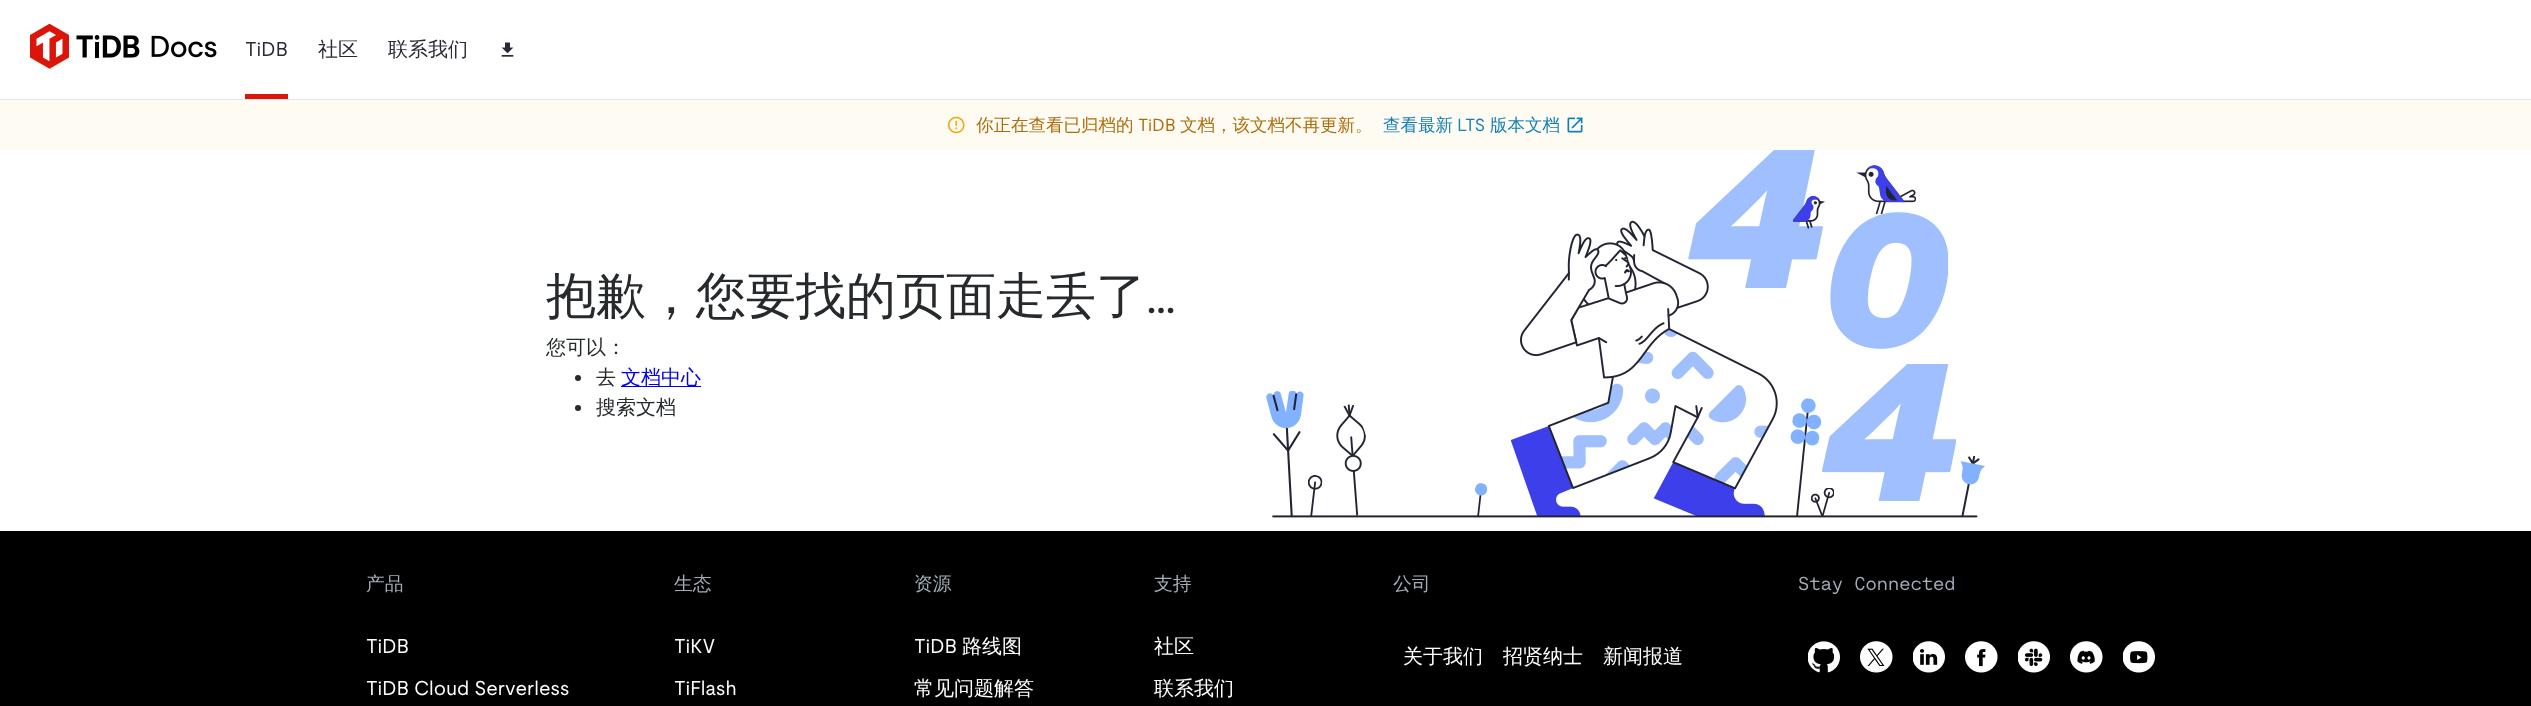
<svg xmlns="http://www.w3.org/2000/svg" width="2531" height="706" viewBox="0 0 2531 706">
  <rect width="100%" height="100%" fill="#fff"/>
  <path d="M0 99h2531v1H0z" fill="#e3e8ea"/>
  <image x="30" y="24" width="187" height="45" href="img/1.png"/>
  <path d="M245 94h43v5H245z" fill="#dc150b"/>
  <image x="501" y="42" width="13" height="15" href="img/2.png"/>
  <path d="M0 100h2531v50H0z" fill="#fefbf3"/>
  <image x="947" y="116" width="18" height="18" href="img/3.png"/>
  <image x="1567" y="117" width="16" height="16" href="img/4.png"/>
  <circle cx="578" cy="378" r="3" fill="#262a2c"/>
  <path d="M621 386h80v1H621z" fill="#00e"/>
  <circle cx="578" cy="408" r="3" fill="#262a2c"/>
  <image x="1266" y="150" width="719" height="368" href="img/5.png"/>
  <path d="M0 531h2531v175H0z" fill="#000"/>
  <image x="1808" y="641" width="32" height="32" href="img/6.png"/>
  <image x="1860" y="641" width="33" height="32" href="img/7.png"/>
  <image x="1913" y="641" width="32" height="32" href="img/8.png"/>
  <image x="1965" y="641" width="33" height="32" href="img/9.png"/>
  <image x="2018" y="641" width="32" height="32" href="img/10.png"/>
  <image x="2070" y="641" width="33" height="32" href="img/11.png"/>
  <image x="2123" y="641" width="32" height="32" href="img/12.png"/>
  <text x="245" y="56" font-family="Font" font-size="20" fill="#282a36">TiDB</text>
  <g font-family="WenQuanYi Zen Hei" font-size="20" font-weight="500" fill="#282a36">
    <text x="318" y="56">社区</text>
    <text x="388" y="56">联系我们</text>
  </g>
  <text x="976" y="131" font-family="WenQuanYi Zen Hei" font-size="17.5" font-weight="500" fill="#ae6d0c">你正在查看已归档的</text>
  <text x="1138" y="131" font-family="Font" font-size="17.5" fill="#ae6d0c">TiDB</text>
  <text x="1180" y="131" font-family="WenQuanYi Zen Hei" font-size="17.5" font-weight="500" fill="#ae6d0c">文档，该文档不再更新。</text>
  <text x="1383" y="131" font-family="WenQuanYi Zen Hei" font-size="17.5" font-weight="500" fill="#1480b8">查看最新</text>
  <text x="1457" y="131" font-family="Font" font-size="17.5" fill="#1480b8">LTS</text>
  <text x="1490" y="131" font-family="WenQuanYi Zen Hei" font-size="17.5" font-weight="500" fill="#1480b8">版本文档</text>
  <text x="546" y="313" font-family="WenQuanYi Zen Hei" font-size="50" font-weight="500" fill="#262a2c">抱歉，您要找的页面走丢了</text>
  <text x="1146" y="313" font-family="Font" font-size="50" fill="#262a2c">…</text>
  <g font-family="WenQuanYi Zen Hei" font-size="20" font-weight="500" fill="#262a2c">
    <text x="546" y="354">您可以：</text>
    <text x="596" y="384">去</text>
  </g>
  <text x="621" y="384" font-family="WenQuanYi Zen Hei" font-size="20" font-weight="500" fill="#00e">文档中心</text>
  <text x="596" y="414" font-family="WenQuanYi Zen Hei" font-size="20" font-weight="500" fill="#262a2c">搜索文档</text>
  <text x="366" y="590" font-family="WenQuanYi Zen Hei" font-size="18.75" font-weight="500" fill="#a2adb9">产品</text>
  <g font-family="Font" font-size="20" fill="#fff">
    <text x="366" y="653">TiDB</text>
    <text x="366" y="695">TiDB Cloud Serverless</text>
  </g>
  <text x="674" y="590" font-family="WenQuanYi Zen Hei" font-size="18.75" font-weight="500" fill="#a2adb9">生态</text>
  <g font-family="Font" font-size="20" fill="#fff">
    <text x="674" y="653">TiKV</text>
    <text x="674" y="695">TiFlash</text>
  </g>
  <text x="914" y="590" font-family="WenQuanYi Zen Hei" font-size="18.75" font-weight="500" fill="#a2adb9">资源</text>
  <text x="914" y="653" font-family="Font" font-size="20" fill="#fff">TiDB</text>
  <g font-family="WenQuanYi Zen Hei" font-size="20" font-weight="500" fill="#fff">
    <text x="962" y="653">路线图</text>
    <text x="914" y="695">常见问题解答</text>
  </g>
  <text x="1154" y="590" font-family="WenQuanYi Zen Hei" font-size="18.75" font-weight="500" fill="#a2adb9">支持</text>
  <g font-family="WenQuanYi Zen Hei" font-size="20" font-weight="500" fill="#fff">
    <text x="1154" y="653">社区</text>
    <text x="1154" y="695">联系我们</text>
  </g>
  <text x="1393" y="590" font-family="WenQuanYi Zen Hei" font-size="18.75" font-weight="500" fill="#a2adb9">公司</text>
  <g font-family="WenQuanYi Zen Hei" font-size="20" font-weight="500" fill="#fff">
    <text x="1403" y="663">关于我们</text>
    <text x="1503" y="663">招贤纳士</text>
    <text x="1603" y="663">新闻报道</text>
  </g>
  <text x="1798" y="590" font-family="'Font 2'" font-size="18.75" fill="#a2adb9">Stay Connected</text>
</svg>
